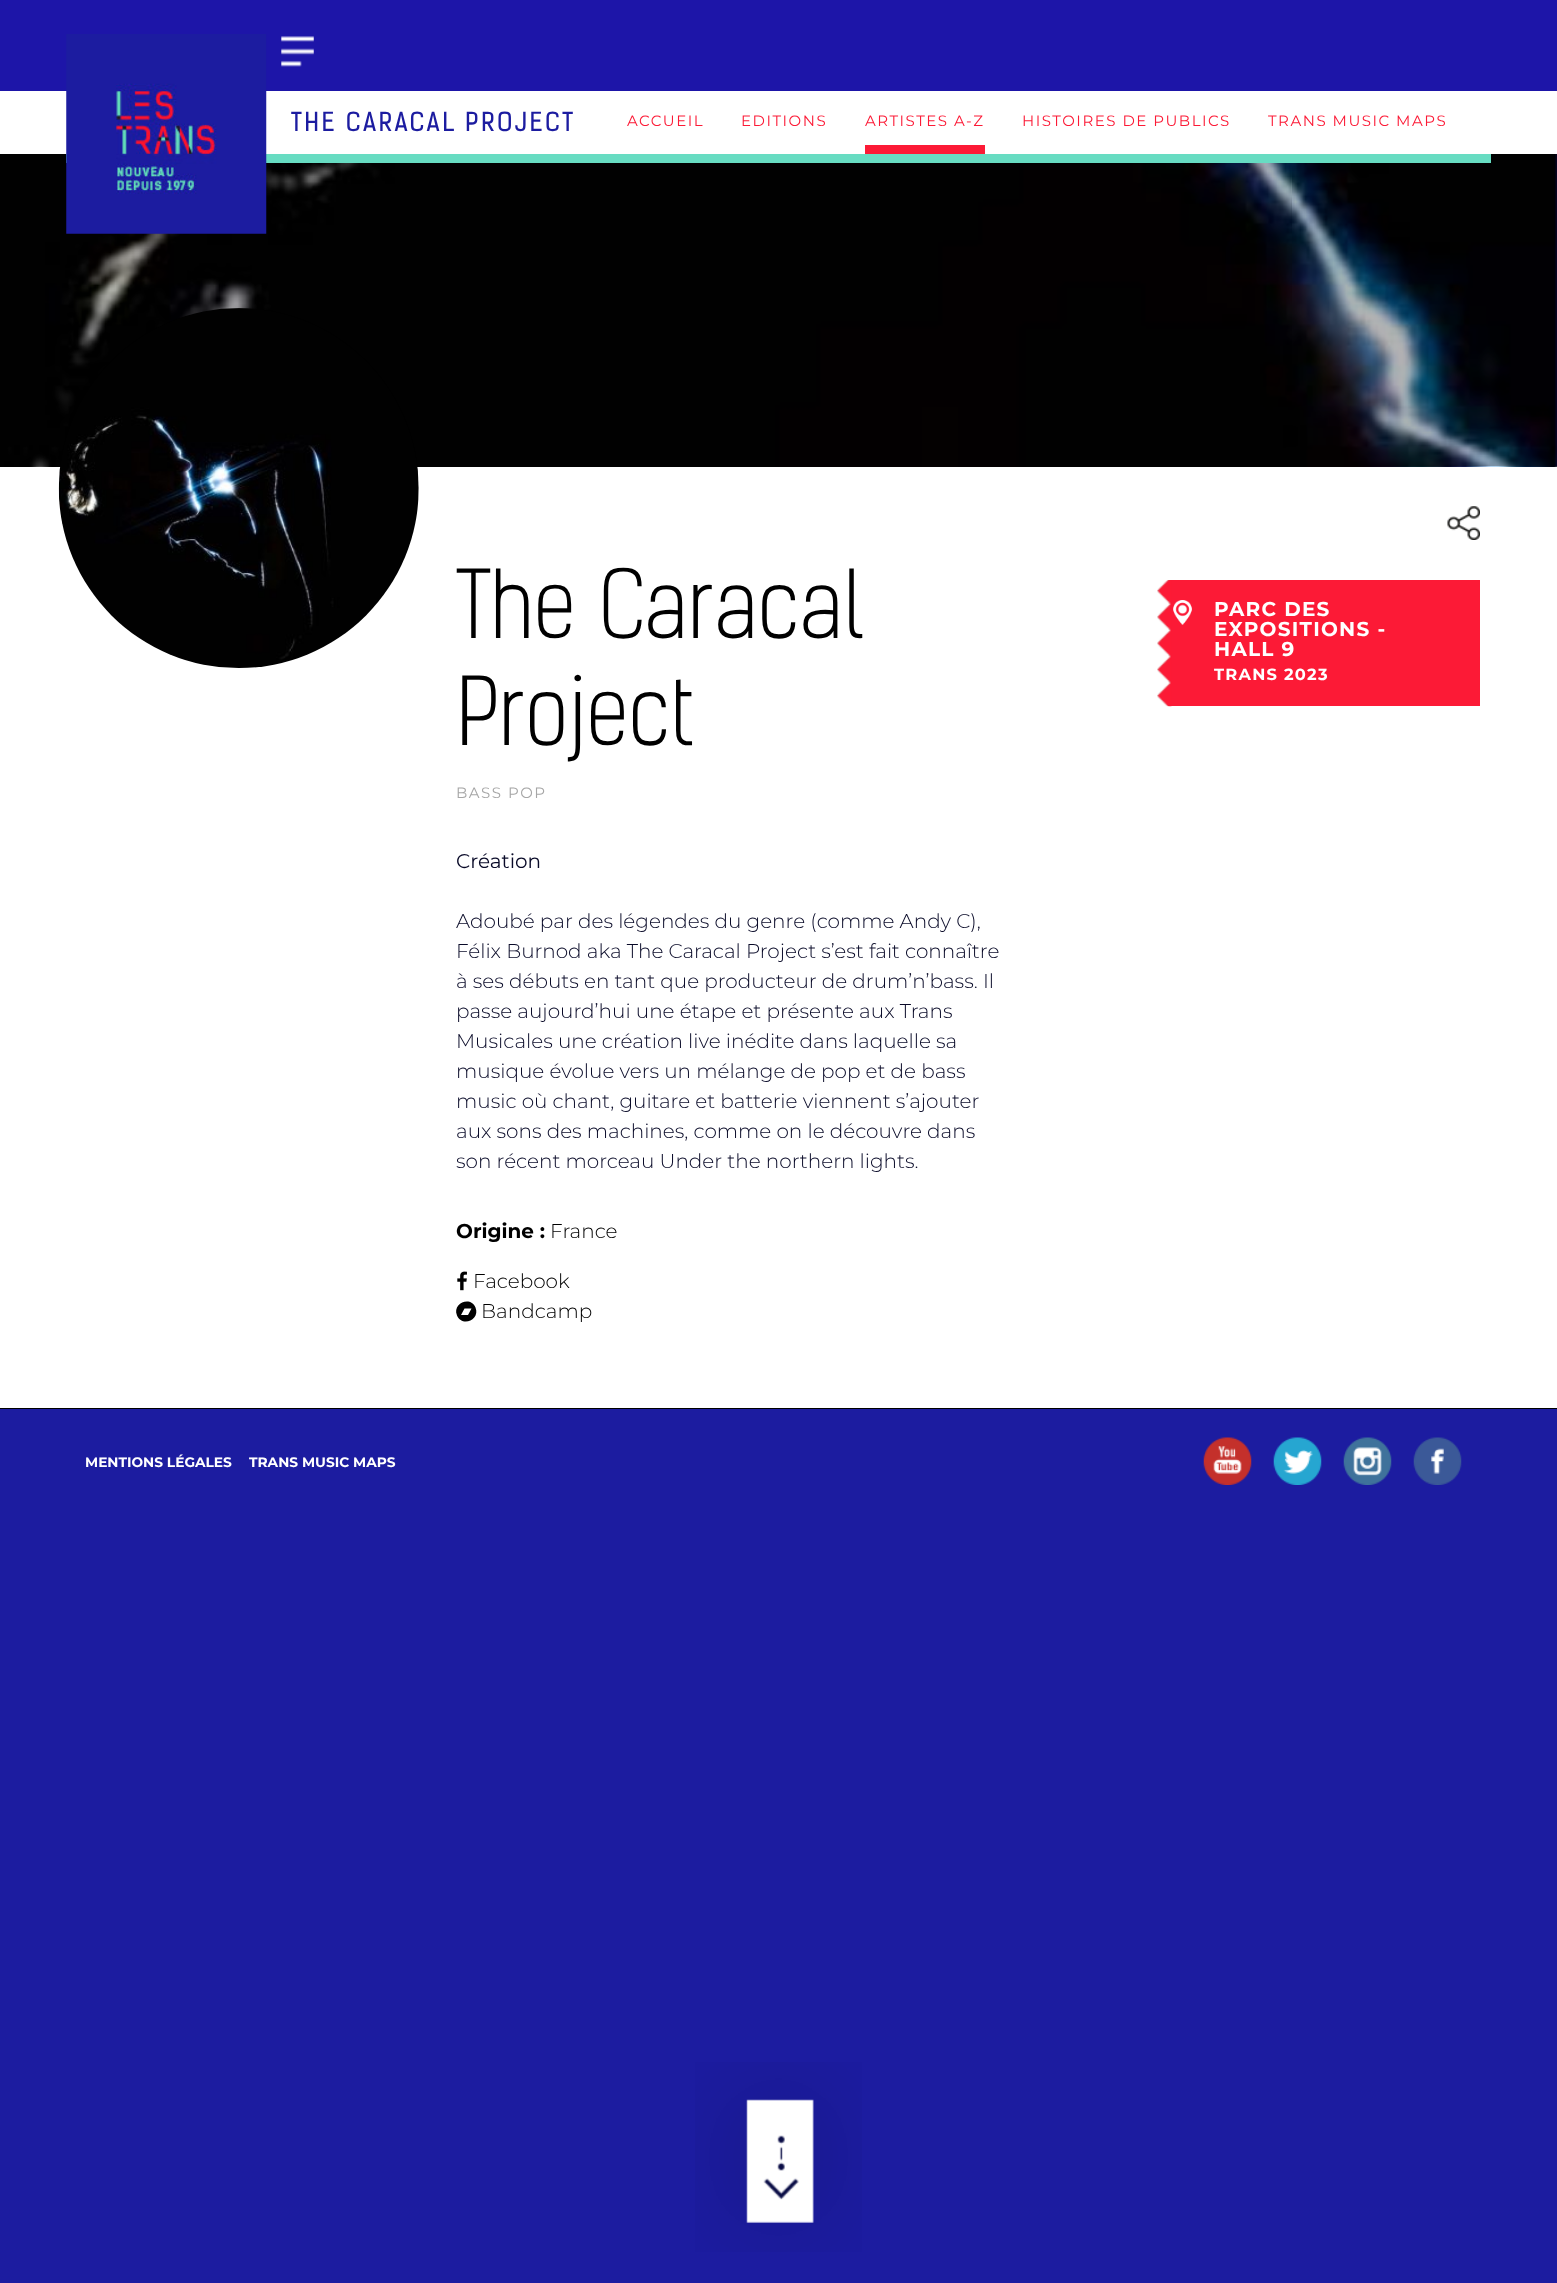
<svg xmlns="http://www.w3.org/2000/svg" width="1557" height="2283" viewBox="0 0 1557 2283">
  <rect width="100%" height="100%" fill="#1c1ca0"/>
  <path d="M0 0h1557v466H0z" fill="#1d15a8"/>
  <path d="M0 91h1557v63H0z" fill="#fff"/>
  <path d="M0 466h1557v942H0z" fill="#fff"/>
  <image x="0" y="154" width="1557" height="313" href="img/3.png"/>
  <path d="M66 154h1425v9H66z" fill="#67dcc2"/>
  <image x="66" y="34" width="201" height="200" href="img/1.png"/>
  <image x="281" y="36" width="33" height="31" href="img/2.png"/>
  <path d="M865 145h120v9H865z" fill="#fc1a36"/>
  <image x="58" y="308" width="361" height="360" href="img/4.png"/>
  <image x="1447" y="506" width="33" height="34" href="img/5.png"/>
  <image x="457" y="1271" width="10" height="20" href="img/6.png"/>
  <path d="M468 1315L471.5 1308.5H464.5L461 1315ZM475.5 1307.5C480.5 1320 462 1327.5 457 1315.5C452 1303.5 470.5 1295.5 475.5 1307.5Z" fill="#000"/>
  <path d="M1170 580h310v126H1170z" fill="#fc1a36"/>
  <image x="1157" y="580" width="15" height="127" href="img/7.png"/>
  <image x="1173" y="600" width="19" height="25" href="img/8.png"/>
  <path d="M0 1408h1557v1H0z" fill="#000"/>
  <image x="695" y="2062" width="167" height="190" href="img/9.png"/>
  <image x="1203" y="1437" width="49" height="48" href="img/10.png"/>
  <image x="1273" y="1437" width="49" height="48" href="img/11.png"/>
  <image x="1343" y="1437" width="49" height="48" href="img/12.png"/>
  <image x="1413" y="1437" width="49" height="48" href="img/13.png"/>
  <text x="291" y="131" font-family="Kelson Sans" font-size="25" letter-spacing="2.5" fill="#1c1ca0">THE CARACAL PROJECT</text>
  <g font-family="Montserrat" font-size="15" letter-spacing="1.5" fill="#fc1a36">
    <text x="627" y="126">ACCUEIL</text>
    <text x="741" y="126">EDITIONS</text>
    <text x="865" y="126">ARTISTES A-Z</text>
    <text x="1022" y="126">HISTOIRES DE PUBLICS</text>
    <text x="1268" y="126">TRANS MUSIC MAPS</text>
  </g>
  <g font-family="Kelson Sans" font-size="90" font-weight="300" fill="#000">
    <text x="456" y="638">The Caracal</text>
    <text x="456" y="745">Project</text>
  </g>
  <text x="456" y="798" font-family="Montserrat" font-size="15" letter-spacing="1.5" fill="#a6a6a6">BASS POP</text>
  <text x="456" y="868" font-family="Montserrat" font-size="20" fill="#090a28">Création</text>
  <g font-family="Montserrat" font-size="20" font-weight="300" fill="#090a28">
    <text x="456" y="928">Adoubé par des légendes du genre (comme Andy C),</text>
    <text x="456" y="958">Félix Burnod aka The Caracal Project s’est fait connaître</text>
    <text x="456" y="988">à ses débuts en tant que producteur de drum’n’bass. Il</text>
    <text x="456" y="1018">passe aujourd’hui une étape et présente aux Trans</text>
    <text x="456" y="1048">Musicales une création live inédite dans laquelle sa</text>
    <text x="456" y="1078">musique évolue vers un mélange de pop et de bass</text>
    <text x="456" y="1108">music où chant, guitare et batterie viennent s’ajouter</text>
    <text x="456" y="1138">aux sons des machines, comme on le découvre dans</text>
    <text x="456" y="1168">son récent morceau Under the northern lights.</text>
  </g>
  <text x="456" y="1238" font-family="Montserrat" font-size="20" font-weight="bold" fill="#000">Origine :</text>
  <g font-family="Montserrat" font-size="20" font-weight="300" fill="#000">
    <text x="550" y="1238">France</text>
    <text x="473" y="1288">Facebook</text>
    <text x="481" y="1318">Bandcamp</text>
  </g>
  <g font-family="Montserrat" font-size="20" font-weight="bold" letter-spacing="1.25" fill="#fff">
    <text x="1214" y="616">PARC DES</text>
    <text x="1214" y="636">EXPOSITIONS -</text>
    <text x="1214" y="656">HALL 9</text>
  </g>
  <text x="1214" y="680" font-family="Montserrat" font-size="16.25" font-weight="bold" letter-spacing="1.25" fill="#fff">TRANS 2023</text>
  <g font-family="Montserrat" font-size="13.75" font-weight="bold" fill="#fff">
    <text x="85" y="1467">MENTIONS LÉGALES</text>
    <text x="249" y="1467">TRANS MUSIC MAPS</text>
  </g>
</svg>
